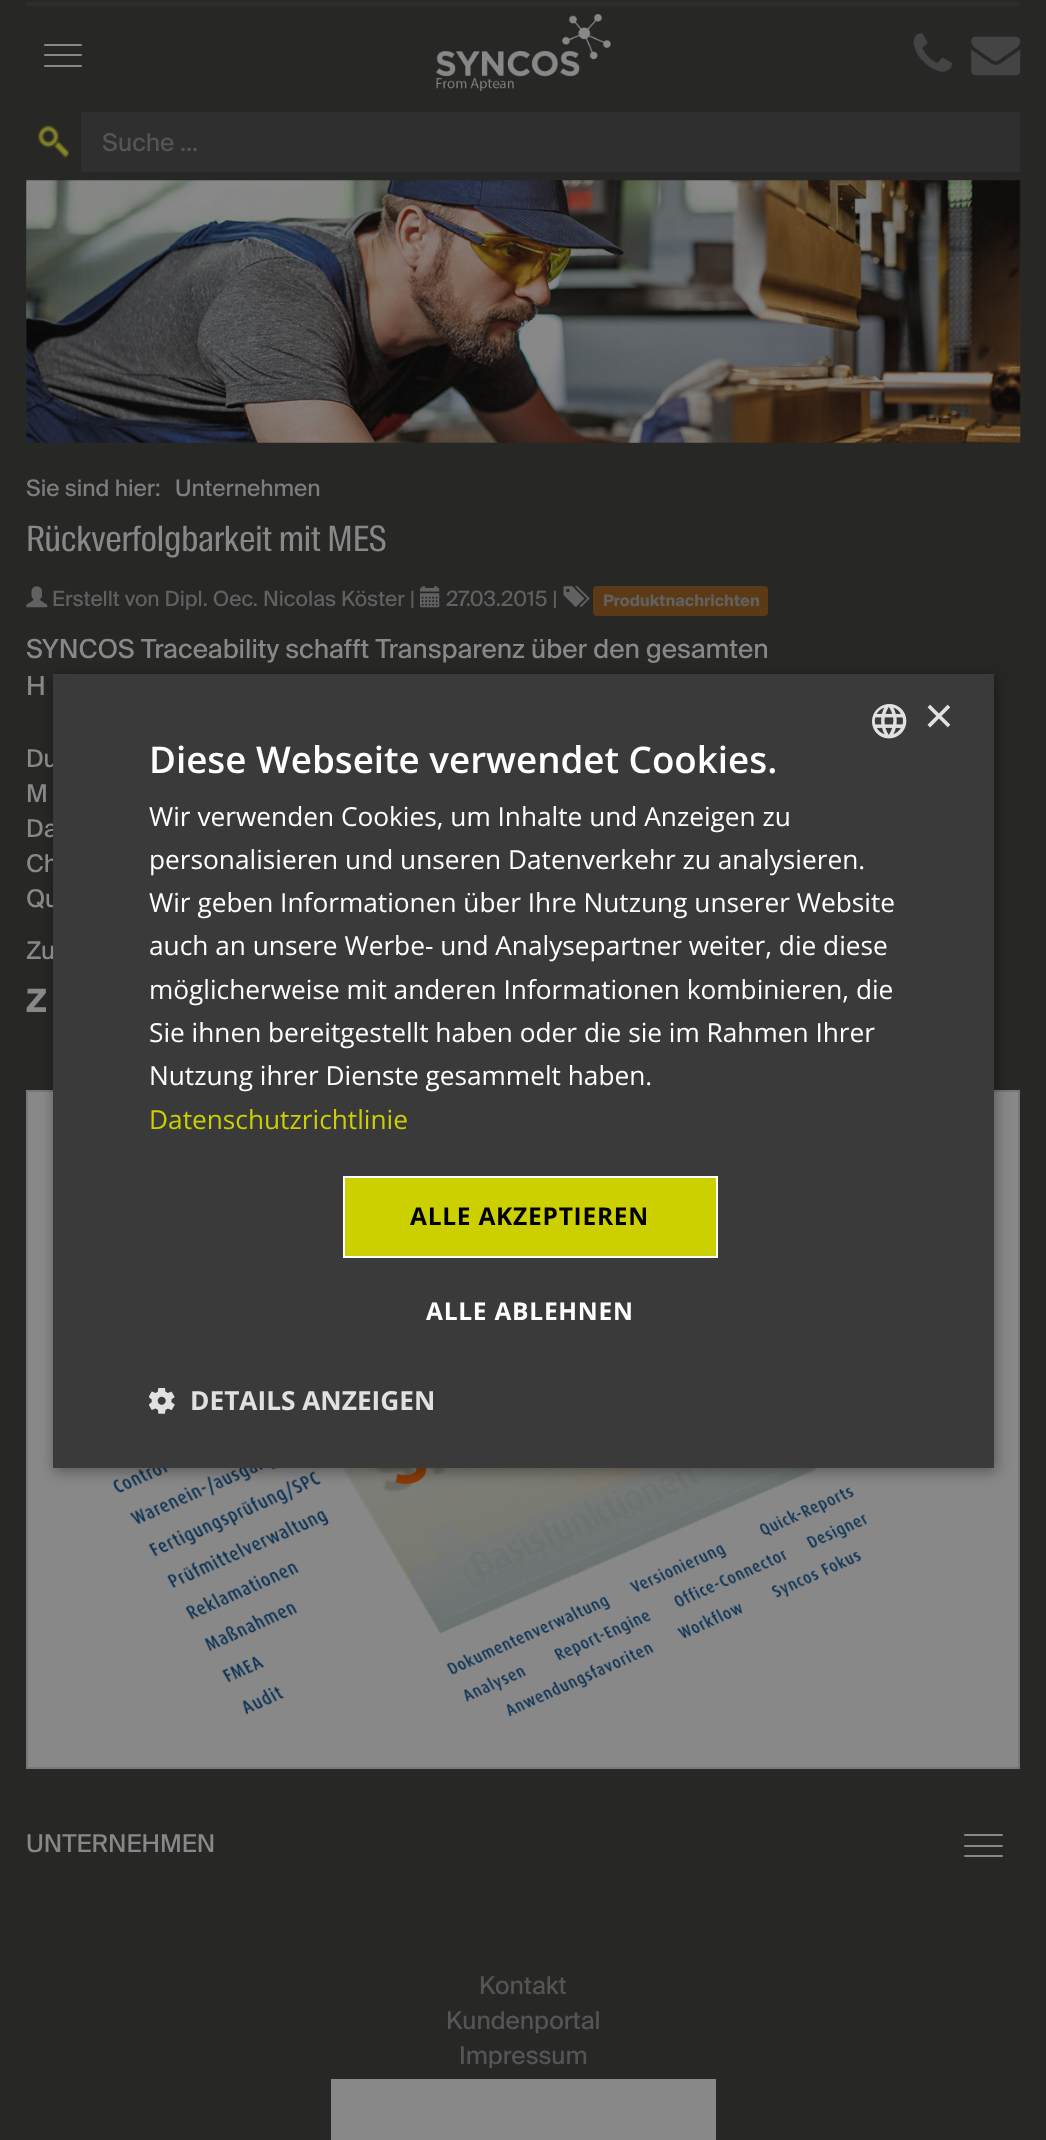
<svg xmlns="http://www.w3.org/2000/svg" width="1046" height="2140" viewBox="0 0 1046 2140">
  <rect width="100%" height="100%" fill="#272726"/>
  <path d="M26 2h994v4H26z" fill="#2d2d2d"/>
  <rect x="44" y="44" width="38" height="2" rx="1" fill="#888"/>
  <rect x="44" y="54" width="38" height="2" rx="1" fill="#888"/>
  <rect x="44" y="65" width="38" height="2" rx="1" fill="#888"/>
  <image x="913" y="33" width="39" height="39" href="img/1.png"/>
  <image x="971" y="36" width="50" height="40" href="img/2.png"/>
  <image x="435" y="14" width="176" height="77" href="img/3.png"/>
  <image x="38" y="125" width="31" height="33" href="img/4.png"/>
  <path d="M81 112h939v60H81z" fill="#2f2f2f"/>
  <image x="26" y="180" width="995" height="263" href="img/5.png"/>
  <image x="26" y="586" width="22" height="22" href="img/6.png"/>
  <image x="420" y="586" width="20" height="22" href="img/7.png"/>
  <image x="563" y="586" width="27" height="21" href="img/8.png"/>
  <rect x="593" y="586" width="175" height="30" rx="4" fill="#5c3a15"/>
  <path d="M27 1091h992v677H27z" fill="#888" stroke="#777" stroke-width="2"/>
  <image x="113" y="1468" width="755" height="249" href="img/9.png"/>
  <rect x="964" y="1834" width="39" height="2" rx="1" fill="#888"/>
  <rect x="964" y="1845" width="39" height="2" rx="1" fill="#888"/>
  <rect x="964" y="1855" width="39" height="2" rx="1" fill="#888"/>
  <path d="M331 2079h385v61H331z" fill="#888"/>
  <path d="M54 677h942v795H54z" fill="#00000059" filter="blur(7px)"/>
  <text x="102" y="151" font-family="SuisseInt" font-size="24.5" fill="#555">Suche ...</text>
  <g font-family="SuisseInt" font-size="22.75" fill="#7e7e7e">
    <text x="26" y="496">Sie sind hier:</text>
    <text x="175" y="496">Unternehmen</text>
  </g>
  <text x="26" y="551" font-family="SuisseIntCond" font-size="35" fill="#888">Rückverfolgbarkeit mit MES</text>
  <g font-family="SuisseInt" font-size="21" fill="#616161">
    <text x="52" y="606">Erstellt von Dipl. Oec. Nicolas Köster |</text>
    <text x="446" y="606">27.03.2015 |</text>
  </g>
  <text x="603" y="606" font-family="SuisseInt" font-size="15.75" font-weight="bold" fill="#616161">Produktnachrichten</text>
  <g font-family="SuisseInt" font-size="26.25" fill="#888">
    <text x="26" y="658">SYNCOS Traceability schafft Transparenz über den gesamten</text>
    <text x="26" y="695">H</text>
  </g>
  <g font-family="SuisseInt" font-size="24.5" fill="#888">
    <text x="26" y="767">Du</text>
    <text x="26" y="802">M</text>
    <text x="26" y="837">Da</text>
    <text x="26" y="872">Ch</text>
    <text x="26" y="907">Qu</text>
    <text x="26" y="959">Zu</text>
  </g>
  <text x="26" y="1012" font-family="SuisseInt" font-size="32" font-weight="bold" fill="#888">Z</text>
  <text x="26" y="1852" font-family="SuisseInt" font-size="24.5" fill="#888">UNTERNEHMEN</text>
  <g font-family="SuisseInt" font-size="24.5" fill="#555">
    <text x="479" y="1994">Kontakt</text>
    <text x="446" y="2029">Kundenportal</text>
    <text x="459" y="2064">Impressum</text>
  </g>
  <path d="M53 674h941v794H53z" fill="#3a3a3a"/>
  <image x="872" y="704" width="35" height="35" href="img/10.png"/>
  <text x="924" y="733" font-family="Liberation Sans" font-size="51" fill="#e1e1e1">×</text>
  <text x="149" y="773" font-family="Open Sans" font-size="36.75" font-weight="600" fill="#fff">Diese Webseite verwendet Cookies.</text>
  <g font-family="Open Sans" font-size="26.25" fill="#fff">
    <text x="149" y="826">Wir verwenden Cookies, um Inhalte und Anzeigen zu</text>
    <text x="149" y="869">personalisieren und unseren Datenverkehr zu analysieren.</text>
    <text x="149" y="912">Wir geben Informationen über Ihre Nutzung unserer Website</text>
    <text x="149" y="955">auch an unsere Werbe- und Analysepartner weiter, die diese</text>
    <text x="149" y="999">möglicherweise mit anderen Informationen kombinieren, die</text>
    <text x="149" y="1042">Sie ihnen bereitgestellt haben oder die sie im Rahmen Ihrer</text>
    <text x="149" y="1085">Nutzung ihrer Dienste gesammelt haben.</text>
  </g>
  <text x="149" y="1129" font-family="Open Sans" font-size="26.25" fill="#cccf00">Datenschutzrichtlinie</text>
  <path d="M344 1177h373v80H344z" fill="#cccf00" stroke="#fff" stroke-width="2"/>
  <text x="410" y="1225" font-family="Open Sans" font-size="24.5" font-weight="bold" letter-spacing="0.75" fill="#000">ALLE AKZEPTIEREN</text>
  <text x="426" y="1320" font-family="Open Sans" font-size="24.5" font-weight="bold" letter-spacing="0.75" fill="#fff">ALLE ABLEHNEN</text>
  <image x="149" y="1388" width="26" height="26" href="img/11.png"/>
  <text x="190" y="1410" font-family="Open Sans" font-size="26.25" font-weight="bold" fill="#e1e1e1">DETAILS ANZEIGEN</text>
</svg>
